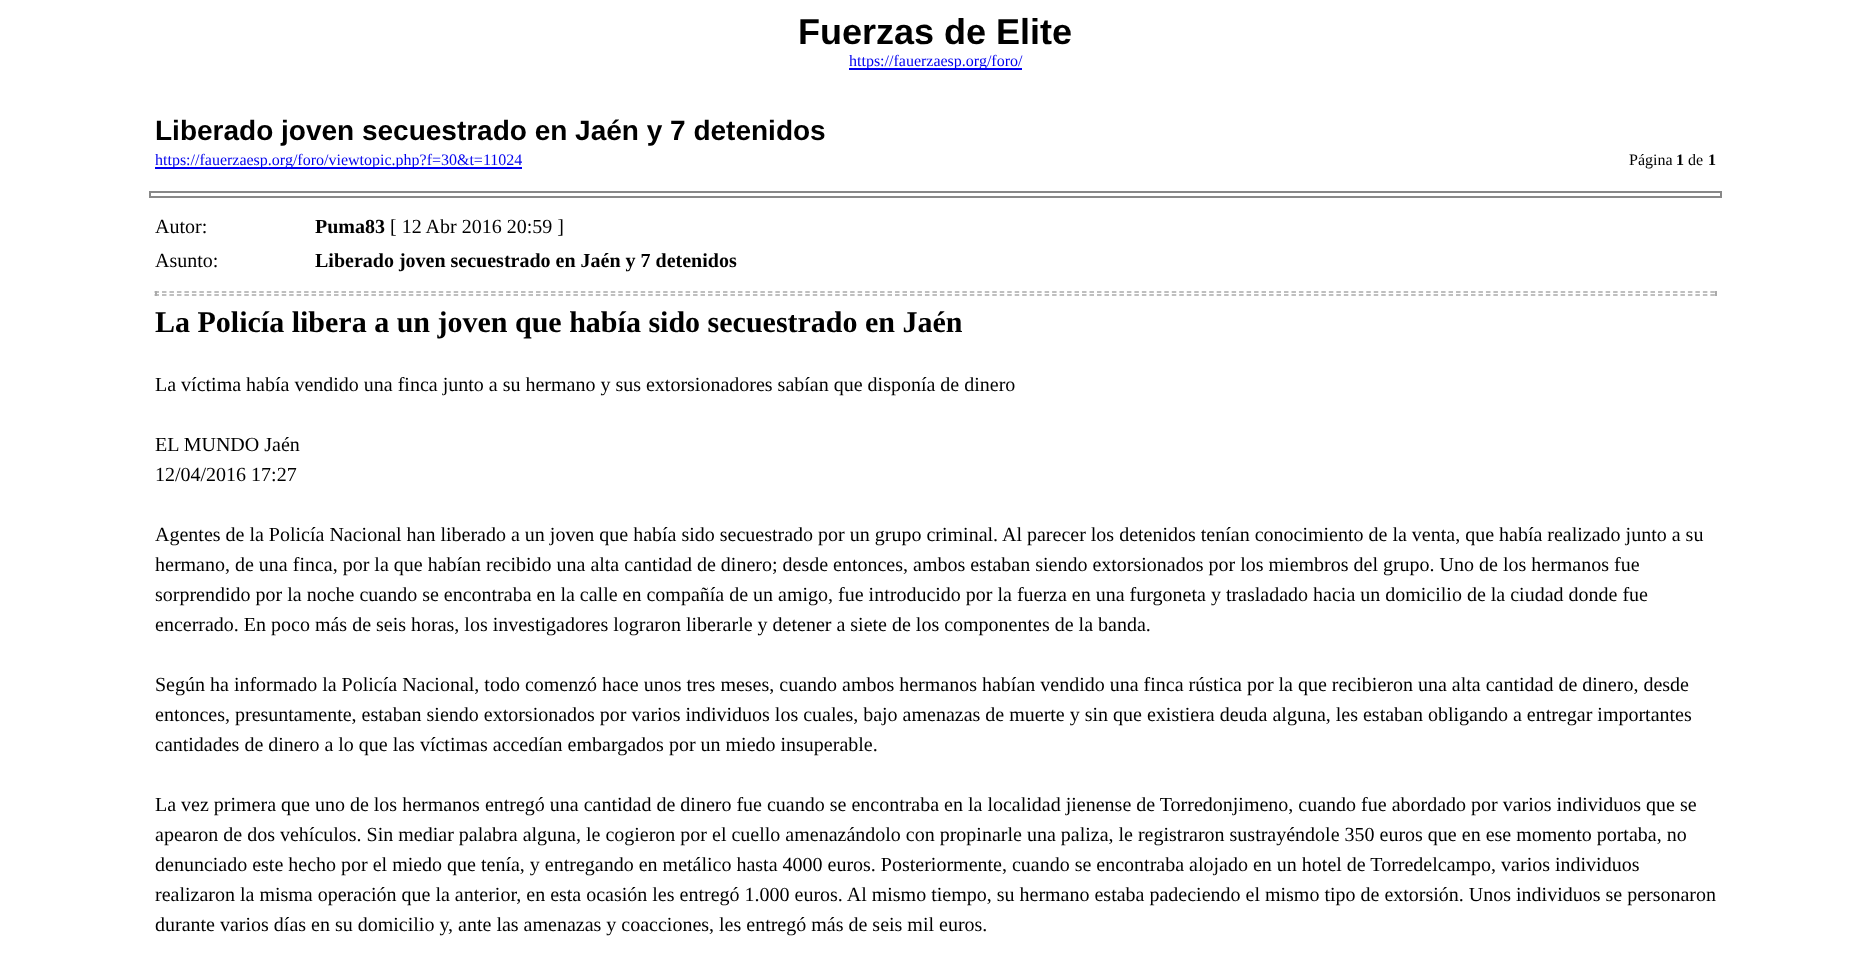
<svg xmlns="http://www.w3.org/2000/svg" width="1870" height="955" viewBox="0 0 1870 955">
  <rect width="100%" height="100%" fill="#fff"/>
  <path d="M849 68h173v2H849z" fill="#00e"/>
  <path d="M155 167h367v2H155z" fill="#00e"/>
  <path d="M150 192h1571v5H150z" fill="none" stroke="#888" stroke-width="2"/>
  <path d="M154.5 292H1716" fill="none" stroke="#aaa" stroke-width="1.5" stroke-dasharray="4.5 2.98"/>
  <path d="M1715 291h2v5H1715z" fill="#aaa"/>
  <path d="M154.5 295H1716" fill="none" stroke="#aaa" stroke-width="1.5" stroke-dasharray="4.5 2.98"/>
  <path d="M155 291h2v5H155z" fill="#aaa"/>
  <text x="798" y="44" font-family="Liberation Sans" font-size="36" font-weight="bold" fill="#000">Fuerzas de Elite</text>
  <text x="849" y="66" font-family="Liberation Serif" font-size="16" fill="#00e">https://fauerzaesp.org/foro/</text>
  <text x="155" y="140" font-family="Liberation Sans" font-size="28" font-weight="bold" fill="#000">Liberado joven secuestrado en Jaén y 7 detenidos</text>
  <text x="155" y="165" font-family="Liberation Serif" font-size="16" fill="#00e">https://fauerzaesp.org/foro/viewtopic.php?f=30&amp;t=11024</text>
  <text x="1629" y="165" font-family="Liberation Serif" font-size="16" fill="#000">Página</text>
  <text x="1676" y="165" font-family="Liberation Serif" font-size="16" font-weight="bold" fill="#000">1</text>
  <text x="1688" y="165" font-family="Liberation Serif" font-size="16" fill="#000">de</text>
  <text x="1708" y="165" font-family="Liberation Serif" font-size="16" font-weight="bold" fill="#000">1</text>
  <text x="155" y="233" font-family="Liberation Serif" font-size="20" fill="#000">Autor:</text>
  <text x="315" y="233" font-family="Liberation Serif" font-size="20" font-weight="bold" fill="#000">Puma83</text>
  <g font-family="Liberation Serif" font-size="20" fill="#000">
    <text x="390" y="233">[ 12 Abr 2016 20:59 ]</text>
    <text x="155" y="267">Asunto:</text>
  </g>
  <text x="315" y="267" font-family="Liberation Serif" font-size="20" font-weight="bold" fill="#000">Liberado joven secuestrado en Jaén y 7 detenidos</text>
  <text x="155" y="332" font-family="Liberation Serif" font-size="30" font-weight="bold" fill="#000">La Policía libera a un joven que había sido secuestrado en Jaén</text>
  <g font-family="Liberation Serif" font-size="20" fill="#000">
    <text x="155" y="391">La víctima había vendido una finca junto a su hermano y sus extorsionadores sabían que disponía de dinero</text>
    <text x="155" y="451">EL MUNDO Jaén</text>
    <text x="155" y="481">12/04/2016 17:27</text>
    <text x="155" y="541">Agentes de la Policía Nacional han liberado a un joven que había sido secuestrado por un grupo criminal. Al parecer los detenidos tenían conocimiento de la venta, que había realizado junto a su</text>
    <text x="155" y="571">hermano, de una finca, por la que habían recibido una alta cantidad de dinero; desde entonces, ambos estaban siendo extorsionados por los miembros del grupo. Uno de los hermanos fue</text>
    <text x="155" y="601">sorprendido por la noche cuando se encontraba en la calle en compañía de un amigo, fue introducido por la fuerza en una furgoneta y trasladado hacia un domicilio de la ciudad donde fue</text>
    <text x="155" y="631">encerrado. En poco más de seis horas, los investigadores lograron liberarle y detener a siete de los componentes de la banda.</text>
    <text x="155" y="691">Según ha informado la Policía Nacional, todo comenzó hace unos tres meses, cuando ambos hermanos habían vendido una finca rústica por la que recibieron una alta cantidad de dinero, desde</text>
    <text x="155" y="721">entonces, presuntamente, estaban siendo extorsionados por varios individuos los cuales, bajo amenazas de muerte y sin que existiera deuda alguna, les estaban obligando a entregar importantes</text>
    <text x="155" y="751">cantidades de dinero a lo que las víctimas accedían embargados por un miedo insuperable.</text>
    <text x="155" y="811">La vez primera que uno de los hermanos entregó una cantidad de dinero fue cuando se encontraba en la localidad jienense de Torredonjimeno, cuando fue abordado por varios individuos que se</text>
    <text x="155" y="841">apearon de dos vehículos. Sin mediar palabra alguna, le cogieron por el cuello amenazándolo con propinarle una paliza, le registraron sustrayéndole 350 euros que en ese momento portaba, no</text>
    <text x="155" y="871">denunciado este hecho por el miedo que tenía, y entregando en metálico hasta 4000 euros. Posteriormente, cuando se encontraba alojado en un hotel de Torredelcampo, varios individuos</text>
    <text x="155" y="901">realizaron la misma operación que la anterior, en esta ocasión les entregó 1.000 euros. Al mismo tiempo, su hermano estaba padeciendo el mismo tipo de extorsión. Unos individuos se personaron</text>
    <text x="155" y="931">durante varios días en su domicilio y, ante las amenazas y coacciones, les entregó más de seis mil euros.</text>
  </g>
</svg>
